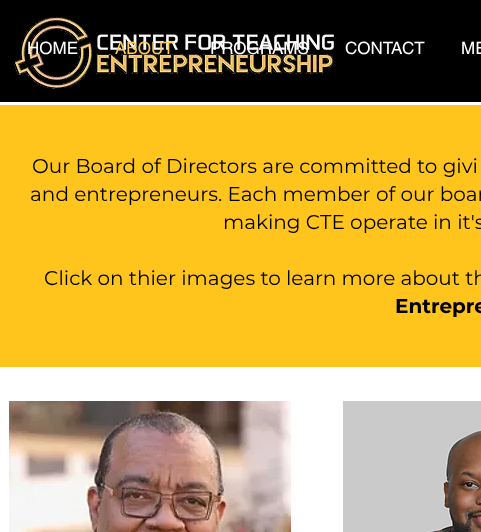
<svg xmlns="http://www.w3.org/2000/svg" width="481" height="532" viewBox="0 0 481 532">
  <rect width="100%" height="100%" fill="#fff"/>
  <path d="M0 0h481v102H0z" fill="#000"/>
  <image x="13" y="17" width="321" height="72" href="img/1.png"/>
  <path d="M0 105h481v262H0z" fill="#ffc51c"/>
  <image x="9" y="401" width="282" height="131" href="img/2.png"/>
  <image x="343" y="401" width="138" height="131" href="img/3.png"/>
  <text x="27" y="54" font-family="helvetica" font-size="17" fill="#fff">HOME</text>
  <text x="115" y="54" font-family="helvetica" font-size="17" fill="#ffcb56">ABOUT</text>
  <g font-family="helvetica" font-size="17" fill="#fff">
    <text x="210" y="54">PROGRAMS</text>
    <text x="345" y="54">CONTACT</text>
    <text x="461" y="54">ME</text>
  </g>
  <g font-family="Montserrat" font-size="20" fill="#000">
    <text x="32" y="173">Our Board of Directors are committed to givi</text>
    <text x="30" y="201">and entrepreneurs. Each member of our boar</text>
    <text x="223" y="229">making CTE operate in it's</text>
    <text x="44" y="285">Click on thier images to learn more about th</text>
  </g>
  <text x="395" y="313" font-family="Montserrat" font-size="20" font-weight="bold" fill="#000">Entrepre</text>
</svg>
